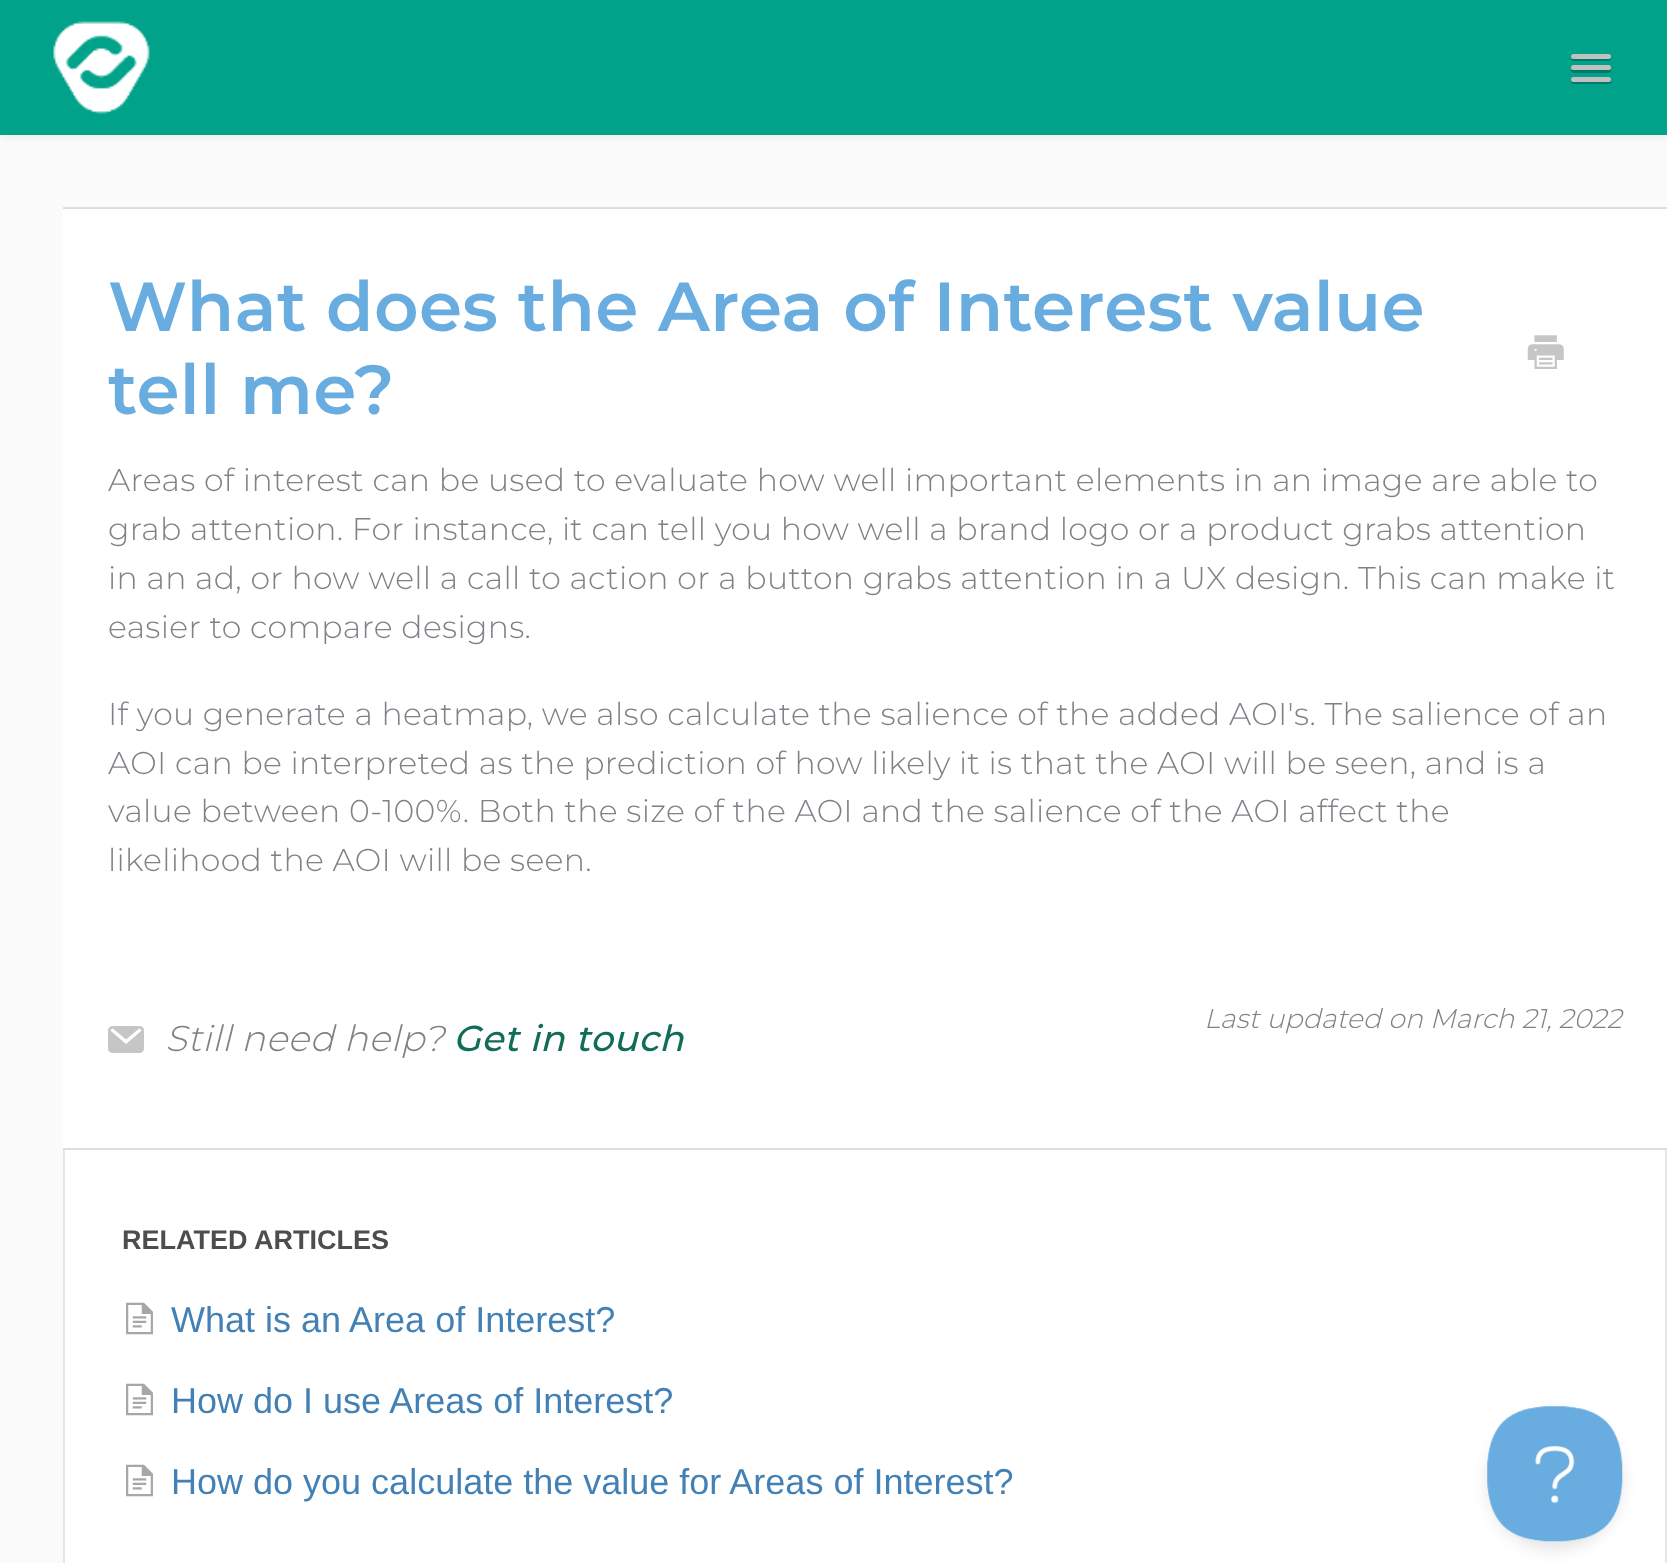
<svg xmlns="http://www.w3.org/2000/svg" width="1667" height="1563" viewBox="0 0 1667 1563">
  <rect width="100%" height="100%" fill="#fbfbfc"/>
  <path d="M0 2h1667v135H0z" fill="#00000012" filter="blur(4.5px)"/>
  <path d="M0 0h1667v135H0z" fill="#00a38a"/>
  <image x="53" y="21" width="97" height="93" href="img/1.png"/>
  <path d="M1571 58C1570 62 1578 61 1579 61H1603C1604 61 1613 62 1611 57L1609 58C1605 59 1572 59 1571 58Z" fill="#007a68"/>
  <rect x="1571" y="54" width="40" height="5" rx="2.5" fill="#c0c0c0"/>
  <path d="M1571 69C1569 74 1579 73 1579 73H1603C1603 73 1614 74 1610 69L1609 70C1606 70 1573 70 1571 69Z" fill="#007a68"/>
  <rect x="1571" y="65" width="40" height="5" rx="2.5" fill="#c0c0c0"/>
  <path d="M1571 80C1569 85 1578 84 1579 84H1603C1603 84 1614 85 1611 80L1609 81C1605 81 1573 82 1571 80Z" fill="#007a68"/>
  <rect x="1571" y="77" width="40" height="5" rx="2.5" fill="#c0c0c0"/>
  <path d="M63 209h1604v939H63z" fill="#fff"/>
  <path d="M63 207h1604v2H63z" fill="#dedede"/>
  <path d="M63 1148h1604v2H63z" fill="#dedede"/>
  <image x="1527" y="335" width="37" height="34" href="img/2.png"/>
  <image x="108" y="1026" width="36" height="27" href="img/3.png"/>
  <path d="M65 1150h1600v413H65z" fill="#fff"/>
  <path d="M1665 1150h2v413H1665z" fill="#e9e5e5"/>
  <path d="M63 1150h2v413H63z" fill="#e9e5e5"/>
  <image x="126" y="1302" width="27" height="33" href="img/4.png"/>
  <image x="126" y="1383" width="27" height="33" href="img/4.png"/>
  <image x="126" y="1464" width="27" height="33" href="img/4.png"/>
  <rect x="1487" y="1415" width="135" height="135" rx="67.5" fill="#0000001a" filter="blur(8px)"/>
  <image x="1487" y="1406" width="136" height="136" href="img/5.png"/>
  <g font-family="Montserrat" font-size="69.25" font-weight="600" letter-spacing="0.32" fill="#69acdf">
    <text x="108" y="331">What does the Area of Interest value</text>
    <text x="108" y="414">tell me?</text>
  </g>
  <g font-family="Montserrat" font-size="31.5" font-weight="300" letter-spacing="0.32" fill="#7e8287">
    <text x="108" y="491">Areas of interest can be used to evaluate how well important elements in an image are able to</text>
    <text x="108" y="540">grab attention. For instance, it can tell you how well a brand logo or a product grabs attention</text>
    <text x="108" y="589">in an ad, or how well a call to action or a button grabs attention in a UX design. This can make it</text>
    <text x="108" y="638">easier to compare designs.</text>
    <text x="108" y="725">If you generate a heatmap, we also calculate the salience of the added AOI's. The salience of an</text>
    <text x="108" y="774">AOI can be interpreted as the prediction of how likely it is that the AOI will be seen, and is a</text>
    <text x="108" y="822">value between 0-100%. Both the size of the AOI and the salience of the AOI affect the</text>
    <text x="108" y="871">likelihood the AOI will be seen.</text>
  </g>
  <text x="165" y="1051" font-family="Montserrat" font-size="36" font-weight="300" font-style="italic" letter-spacing="0.4" fill="#7e8287">Still need help?</text>
  <text x="453" y="1051" font-family="Montserrat" font-size="36" font-weight="500" font-style="italic" letter-spacing="0.5" fill="#126d58">Get in touch</text>
  <text x="1204" y="1028" font-family="Montserrat" font-size="27" font-weight="300" font-style="italic" fill="#7e8287">Last updated on March 21, 2022</text>
  <text x="122" y="1249" font-family="Liberation Sans" font-size="27" font-weight="bold" fill="#4d4d4d">RELATED ARTICLES</text>
  <g font-family="Liberation Sans" font-size="36" fill="#4381b5">
    <text x="171" y="1332">What is an Area of Interest?</text>
    <text x="171" y="1413">How do I use Areas of Interest?</text>
    <text x="171" y="1494">How do you calculate the value for Areas of Interest?</text>
  </g>
</svg>
